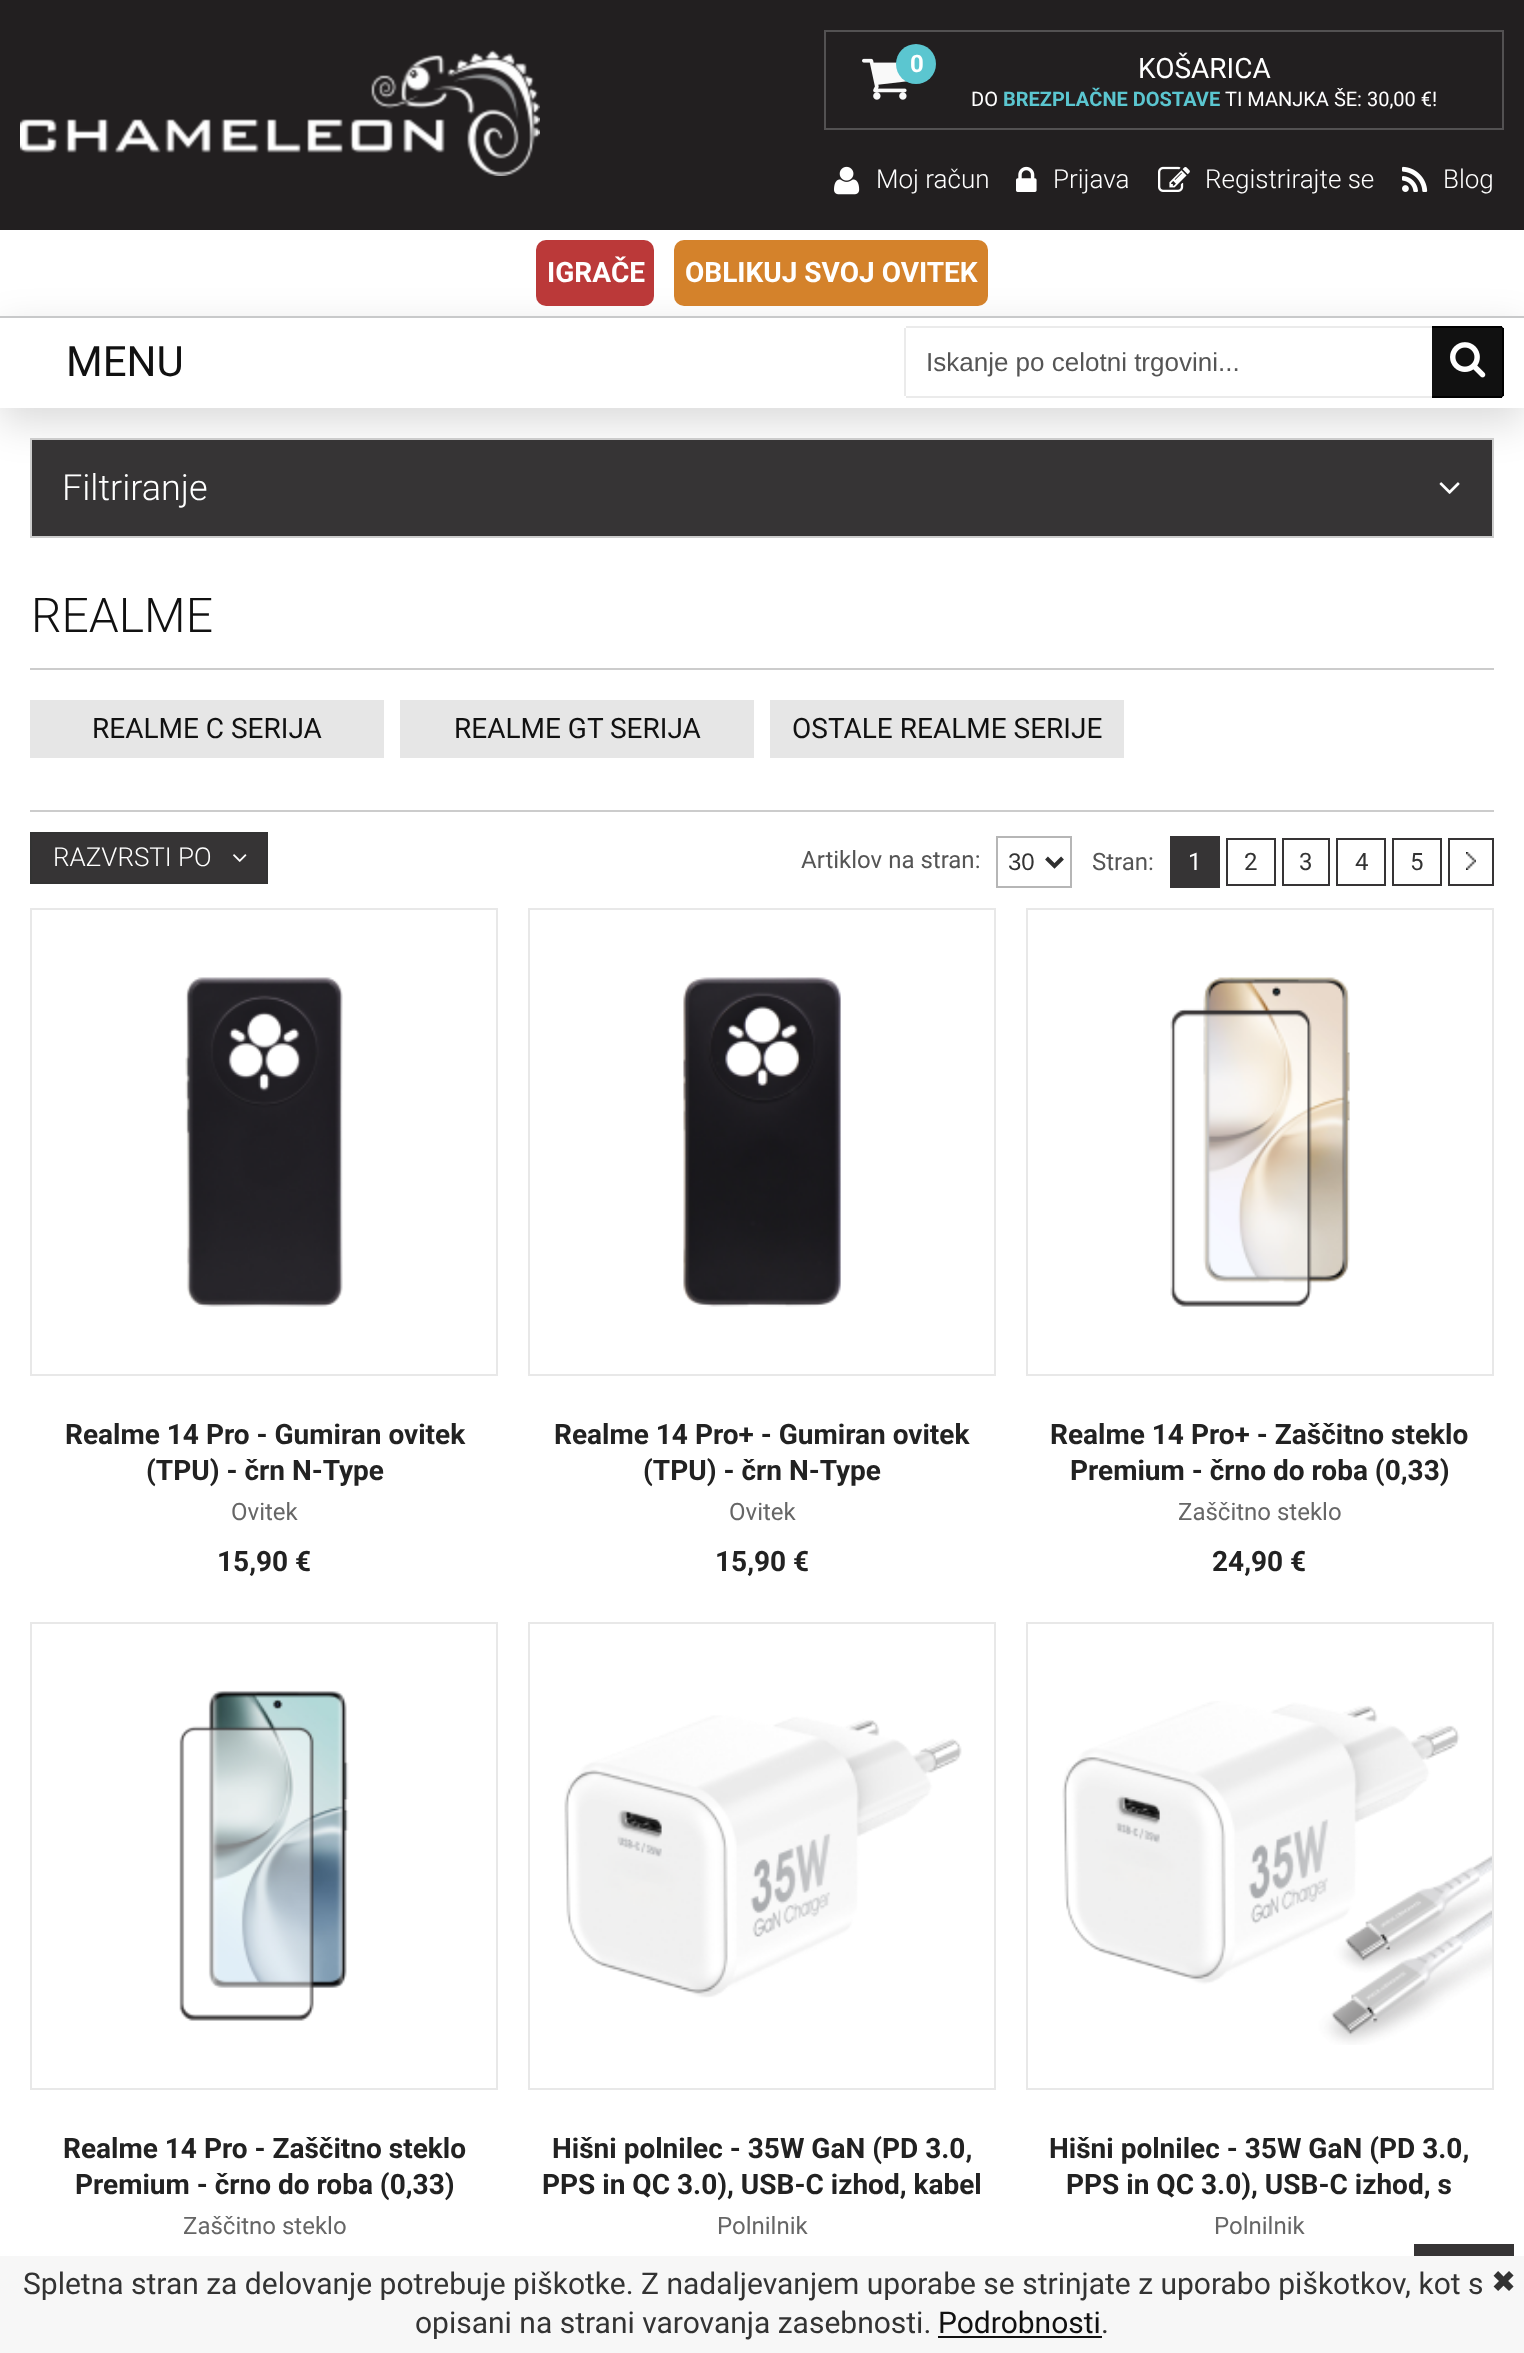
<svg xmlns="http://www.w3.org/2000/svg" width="1524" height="2353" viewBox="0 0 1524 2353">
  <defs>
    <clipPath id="clip1"><path d="M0 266H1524V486H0ZM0 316H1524V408H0Z" clip-rule="evenodd"/></clipPath>
  </defs>
  <rect width="100%" height="100%" fill="#fff"/>
  <path d="M0 0h1524v230H0z" fill="#221f20"/>
  <image x="20" y="50" width="520" height="126" href="img/1.png"/>
  <path d="M824 30h680v2H824z" fill="#535152"/>
  <path d="M824 128h680v2H824z" fill="#535152"/>
  <path d="M1502 32h2v96H1502z" fill="#535152"/>
  <path d="M824 32h2v96H824z" fill="#535152"/>
  <image x="862" y="58" width="46" height="42" href="img/2.png"/>
  <circle cx="916" cy="64" r="20" fill="#5bc6d0"/>
  <image x="834" y="166" width="26" height="29" href="img/3.png"/>
  <image x="1016" y="166" width="21" height="26" href="img/4.png"/>
  <image x="1158" y="166" width="32" height="26" href="img/5.png"/>
  <image x="1402" y="166" width="26" height="26" href="img/6.png"/>
  <g clip-path="url(#clip1)">
    <path d="M0 330h1524v92H0z" fill="#00000026" filter="blur(21px)"/>
  </g>
  <rect x="536" y="240" width="118" height="66" rx="10" fill="#bb3939"/>
  <rect x="674" y="240" width="314" height="66" rx="10" fill="#d4822b"/>
  <path d="M0 316h1524v2H0z" fill="#c8c9ca"/>
  <path d="M906 326h526v2H906z" fill="#ebebeb"/>
  <path d="M906 396h526v2H906z" fill="#ebebeb"/>
  <path d="M904 328h2v68H904z" fill="#ebebeb"/>
  <path d="M1432 326H1500C1502 326 1504 328 1504 330V394C1504 396 1502 398 1500 398H1432Z" fill="#111"/>
  <path d="M1432 326h70v2H1432z" fill="#000"/>
  <path d="M1502 328h2v68H1502z" fill="#000"/>
  <path d="M1432 396h70v2H1432z" fill="#000"/>
  <image x="1450" y="342" width="36" height="36" href="img/7.png"/>
  <path d="M31 439h1462v98H31z" fill="none" stroke="#ccc" stroke-width="2"/>
  <path d="M32 440h1460v96H32z" fill="#363435"/>
  <image x="1439" y="482" width="21" height="12" href="img/8.png"/>
  <path d="M30 668h1464v2H30z" fill="#ccc"/>
  <path d="M30 810h1464v2H30z" fill="#ccc"/>
  <path d="M30 700h354v58H30z" fill="#e6e6e6"/>
  <path d="M400 700h354v58H400z" fill="#e6e6e6"/>
  <path d="M770 700h354v58H770z" fill="#e6e6e6"/>
  <path d="M31 833h236v50H31z" fill="#363435" stroke="#333" stroke-width="2"/>
  <image x="233" y="854" width="14" height="8" href="img/9.png"/>
  <path d="M997 837h74v50H997z" fill="none" stroke="#b6b6b6" stroke-width="2"/>
  <path d="M1046.5 858L1054.5 866L1062.5 858" fill="none" stroke="#2f2f2f" stroke-width="4"/>
  <path d="M1170 836h50v52H1170z" fill="#363435"/>
  <path d="M1227 839h48v46H1227z" fill="none" stroke="#363435" stroke-width="2"/>
  <path d="M1283 839h46v46H1283z" fill="none" stroke="#363435" stroke-width="2"/>
  <path d="M1337 839h48v46H1337z" fill="none" stroke="#363435" stroke-width="2"/>
  <path d="M1393 839h48v46H1393z" fill="none" stroke="#363435" stroke-width="2"/>
  <path d="M1449 839h44v46H1449z" fill="none" stroke="#363435" stroke-width="2"/>
  <image x="1466" y="852" width="10" height="18" href="img/10.png"/>
  <path d="M31 909h466v466H31z" fill="none" stroke="#e8e8e8" stroke-width="2"/>
  <image x="185" y="977" width="158" height="330" href="img/11.png"/>
  <path d="M529 909h466v466H529z" fill="none" stroke="#e8e8e8" stroke-width="2"/>
  <image x="683" y="977" width="158" height="330" href="img/12.png"/>
  <path d="M1027 909h466v466H1027z" fill="none" stroke="#e8e8e8" stroke-width="2"/>
  <image x="1170" y="977" width="180" height="330" href="img/13.png"/>
  <path d="M31 1623h466v466H31z" fill="none" stroke="#e8e8e8" stroke-width="2"/>
  <image x="179" y="1690" width="170" height="331" href="img/14.png"/>
  <path d="M529 1623h466v466H529z" fill="none" stroke="#e8e8e8" stroke-width="2"/>
  <image x="564" y="1715" width="398" height="283" href="img/15.png"/>
  <path d="M1027 1623h466v466H1027z" fill="none" stroke="#e8e8e8" stroke-width="2"/>
  <image x="1062" y="1701" width="430" height="344" href="img/16.png"/>
  <path d="M1414 2244h100v12H1414z" fill="#363435"/>
  <path d="M0 2256h1524v97H0z" fill="#f7f7f7"/>
  <path d="M938 2336h164v2H938z" fill="#111"/>
  <text x="910" y="72" font-family="Roboto" font-size="24" font-weight="bold" fill="#fff">0</text>
  <text x="1138" y="78" font-family="Roboto" font-size="28" fill="#fff">KOŠARICA</text>
  <text x="971" y="106" font-family="Roboto" font-size="20" fill="#fff">DO</text>
  <text x="1003" y="106" font-family="Roboto" font-size="20" font-weight="bold" fill="#5bc6d0">BREZPLAČNE DOSTAVE</text>
  <text x="1225" y="106" font-family="Roboto" font-size="20" fill="#fff">TI MANJKA ŠE: 30,00 €!</text>
  <g font-family="Roboto" font-size="26" font-weight="300" fill="#fff">
    <text x="876" y="188">Moj račun</text>
    <text x="1053" y="188">Prijava</text>
    <text x="1205" y="188">Registrirajte se</text>
    <text x="1443" y="188">Blog</text>
  </g>
  <g font-family="Roboto" font-size="28" font-weight="bold" fill="#fff">
    <text x="547" y="282">IGRAČE</text>
    <text x="685" y="282">OBLIKUJ SVOJ OVITEK</text>
  </g>
  <text x="66" y="376" font-family="Roboto" font-size="42" fill="#111">MENU</text>
  <text x="926" y="371" font-family="Liberation Sans" font-size="26" fill="#555">Iskanje po celotni trgovini...</text>
  <text x="62" y="500" font-family="Roboto" font-size="36" font-weight="300" fill="#fff">Filtriranje</text>
  <text x="31" y="632" font-family="Roboto" font-size="48" font-weight="300" fill="#111">REALME</text>
  <g font-family="Roboto" font-size="28" fill="#111">
    <text x="92" y="738">REALME C SERIJA</text>
    <text x="454" y="738">REALME GT SERIJA</text>
    <text x="792" y="738">OSTALE REALME SERIJE</text>
  </g>
  <text x="53" y="866" font-family="Roboto" font-size="26" font-weight="300" fill="#fff">RAZVRSTI PO</text>
  <text x="801" y="868" font-family="Roboto" font-size="24" fill="#555">Artiklov na stran:</text>
  <text x="1008" y="870" font-family="Liberation Sans" font-size="24" fill="#333">30</text>
  <text x="1092" y="870" font-family="Roboto" font-size="24" fill="#555">Stran:</text>
  <text x="1188" y="870" font-family="Roboto" font-size="24" fill="#fff">1</text>
  <g font-family="Roboto" font-size="24" fill="#333">
    <text x="1244" y="870">2</text>
    <text x="1299" y="870">3</text>
    <text x="1355" y="870">4</text>
    <text x="1410" y="870">5</text>
  </g>
  <g font-family="Roboto" font-size="28" font-weight="bold" fill="#222">
    <text x="65" y="1444">Realme 14 Pro - Gumiran ovitek</text>
    <text x="146" y="1480">(TPU) - črn N-Type</text>
  </g>
  <text x="231" y="1520" font-family="Roboto" font-size="24" fill="#666">Ovitek</text>
  <g font-family="Roboto" font-size="28" font-weight="bold" fill="#222">
    <text x="217" y="1571">15,90 €</text>
    <text x="554" y="1444">Realme 14 Pro+ - Gumiran ovitek</text>
    <text x="643" y="1480">(TPU) - črn N-Type</text>
  </g>
  <text x="729" y="1520" font-family="Roboto" font-size="24" fill="#666">Ovitek</text>
  <g font-family="Roboto" font-size="28" font-weight="bold" fill="#222">
    <text x="715" y="1571">15,90 €</text>
    <text x="1050" y="1444">Realme 14 Pro+ - Zaščitno steklo</text>
    <text x="1070" y="1480">Premium - črno do roba (0,33)</text>
  </g>
  <text x="1178" y="1520" font-family="Roboto" font-size="24" fill="#666">Zaščitno steklo</text>
  <g font-family="Roboto" font-size="28" font-weight="bold" fill="#222">
    <text x="1212" y="1571">24,90 €</text>
    <text x="63" y="2158">Realme 14 Pro - Zaščitno steklo</text>
    <text x="75" y="2194">Premium - črno do roba (0,33)</text>
  </g>
  <text x="183" y="2234" font-family="Roboto" font-size="24" fill="#666">Zaščitno steklo</text>
  <g font-family="Roboto" font-size="28" font-weight="bold" fill="#222">
    <text x="552" y="2158">Hišni polnilec - 35W GaN (PD 3.0,</text>
    <text x="542" y="2194">PPS in QC 3.0), USB-C izhod, kabel</text>
  </g>
  <text x="717" y="2234" font-family="Roboto" font-size="24" fill="#666">Polnilnik</text>
  <g font-family="Roboto" font-size="28" font-weight="bold" fill="#222">
    <text x="1049" y="2158">Hišni polnilec - 35W GaN (PD 3.0,</text>
    <text x="1066" y="2194">PPS in QC 3.0), USB-C izhod, s</text>
  </g>
  <text x="1214" y="2234" font-family="Roboto" font-size="24" fill="#666">Polnilnik</text>
  <text x="23" y="2294" font-family="Roboto" font-size="30" fill="#333">Spletna stran za delovanje potrebuje piškotke. Z nadaljevanjem uporabe se strinjate z uporabo piškotkov, kot s</text>
  <path d="M1482 2288h1v3H1482z" fill="#f7f7f7"/>
  <text x="1491" y="2292" font-family="DejaVu Sans" font-size="30" fill="#333">✖</text>
  <text x="415" y="2333" font-family="Roboto" font-size="30" fill="#333">opisani na strani varovanja zasebnosti.</text>
  <text x="938" y="2333" font-family="Roboto" font-size="30" fill="#111">Podrobnosti</text>
  <text x="1101" y="2333" font-family="Roboto" font-size="30" fill="#333">.</text>
</svg>
